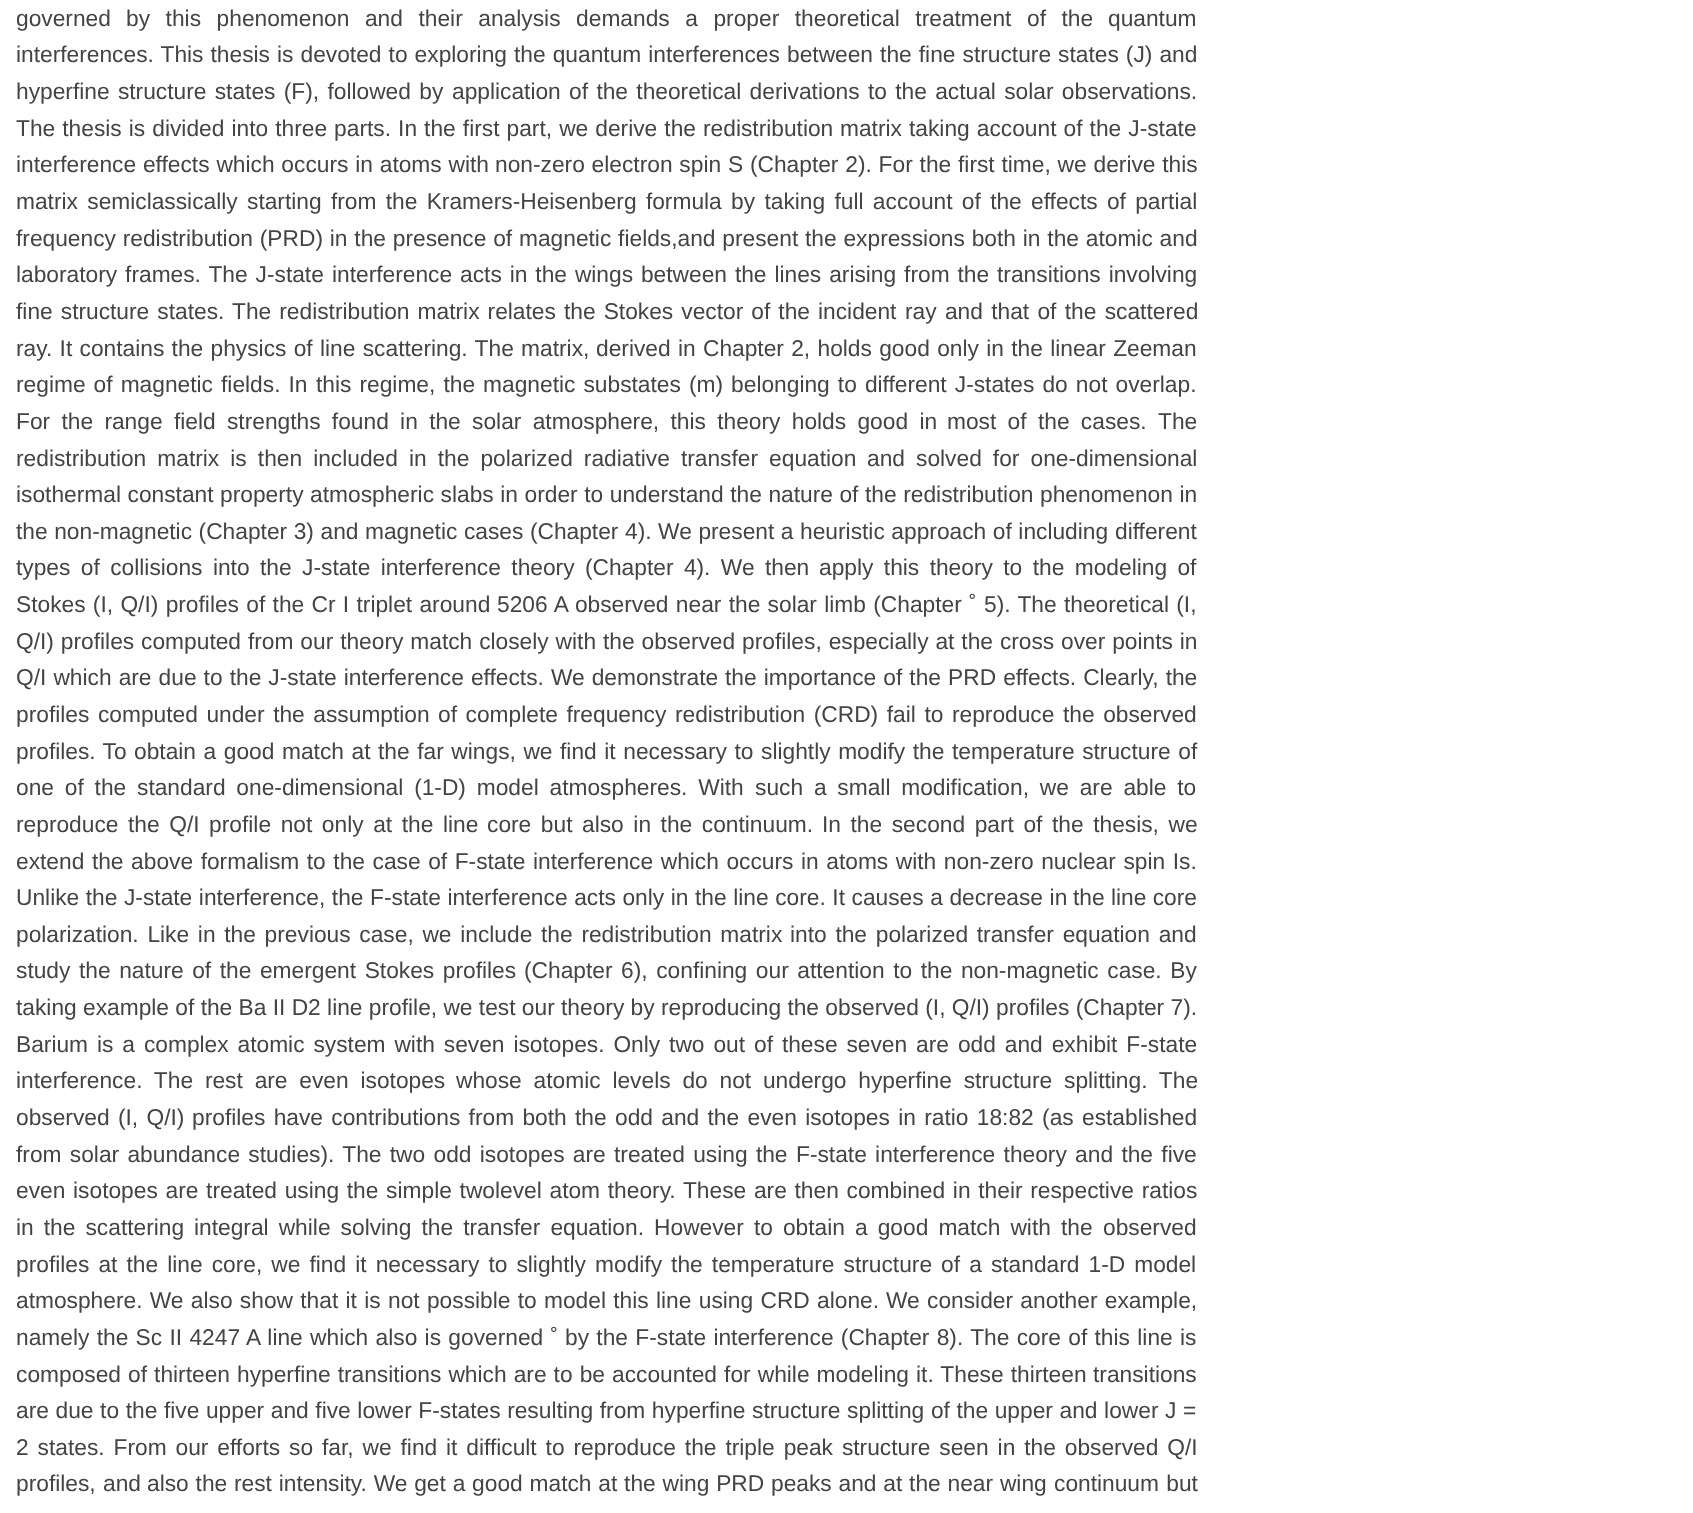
<svg xmlns="http://www.w3.org/2000/svg" width="1693" height="1513" viewBox="0 0 1693 1513">
  <rect width="100%" height="100%" fill="#fff"/>
  <g font-family="Liberation Sans" font-size="22.75" fill="#444">
    <text x="16" y="26">governed</text>
    <text x="126" y="26" word-spacing="9.25">by this phenomenon and their analysis demands a proper theoretical treatment of the</text>
    <text x="1108" y="26">quantum</text>
    <text x="16" y="62" word-spacing="0.75">interferences. This thesis is devoted to exploring the quantum interferences</text>
    <text x="787" y="62" word-spacing="0.75">between the fine structure states (J) and</text>
    <text x="16" y="99" word-spacing="2">hyperfine structure states (F), followed by</text>
    <text x="452" y="99" word-spacing="2">application of the theoretical derivations to the actual solar observations.</text>
    <text x="16" y="136" word-spacing="0.75">The thesis is divided into three parts. In the first part, we derive the redistribution</text>
    <text x="840" y="136" word-spacing="0.75">matrix taking account of the J-state</text>
    <text x="16" y="172" word-spacing="0.5">interference effects which occurs in atoms with</text>
    <text x="495" y="172" word-spacing="0.5">non-zero electron spin S (Chapter 2). For the first time, we derive this</text>
    <text x="16" y="209" word-spacing="3">matrix semiclassically starting from the Kramers-Heisenberg formula by taking full account of the</text>
    <text x="1031" y="209" word-spacing="3">effects of partial</text>
    <text x="16" y="246" word-spacing="0.5">frequency redistribution (PRD) in the presence of magnetic fields,and present the expressions both in the atomic and</text>
    <text x="16" y="282" word-spacing="1.6">laboratory frames. The J-state</text>
    <text x="332" y="282" word-spacing="1.6">interference acts in the wings between the lines arising from the transitions involving</text>
    <text x="16" y="319" word-spacing="1.75">fine structure states. The redistribution matrix relates the Stokes vector of the incident</text>
    <text x="905" y="319" word-spacing="2">ray and that of the scattered</text>
    <text x="16" y="356" word-spacing="1">ray. It contains the physics of line scattering. The matrix,</text>
    <text x="596" y="356" word-spacing="1">derived in Chapter 2, holds good only in the linear Zeeman</text>
    <text x="16" y="392" word-spacing="1.75">regime of magnetic fields. In</text>
    <text x="316" y="392" word-spacing="1.75">this regime, the magnetic substates (m) belonging to different J-states do not overlap.</text>
    <text x="16" y="429" word-spacing="5">For the range field strengths found in the solar atmosphere, this theory holds good in</text>
    <text x="947" y="429" word-spacing="5">most of the cases.</text>
    <text x="1158" y="429">The</text>
    <text x="16" y="466" word-spacing="4.75">redistribution matrix is then included in the polarized radiative transfer equation</text>
    <text x="867" y="466" word-spacing="4.75">and solved for one-dimensional</text>
    <text x="16" y="502" word-spacing="0.25">isothermal constant property atmospheric slabs in order to understand the nature of the redistribution phenomenon in</text>
    <text x="16" y="539" word-spacing="0.25">the non-magnetic (Chapter 3) and magnetic cases (Chapter 4). We present a heuristic approach of including</text>
    <text x="1115" y="539">different</text>
    <text x="16" y="575" word-spacing="4.1">types of collisions into the J-state interference theory (Chapter 4). We then</text>
    <text x="819" y="575" word-spacing="4.1">apply this theory to the modeling of</text>
    <text x="16" y="612" word-spacing="1">Stokes (I, Q/I) profiles of the Cr I triplet around</text>
    <text x="497" y="612" word-spacing="1">5206 A observed near the solar limb (Chapter ˚ 5). The theoretical (I,</text>
    <text x="16" y="649" word-spacing="0.6">Q/I) profiles computed from our theory match closely with the observed profiles, especially at the cross</text>
    <text x="1061" y="649" word-spacing="0.6">over points in</text>
    <text x="16" y="685" word-spacing="0.75">Q/I which are due to the J-state interference effects. We demonstrate</text>
    <text x="725" y="685" word-spacing="0.75">the importance of the PRD effects. Clearly, the</text>
    <text x="16" y="722" word-spacing="2.25">profiles computed under the assumption</text>
    <text x="438" y="722" word-spacing="2.25">of complete frequency redistribution (CRD) fail to reproduce the observed</text>
    <text x="16" y="759" word-spacing="1">profiles. To</text>
    <text x="134" y="759" word-spacing="1.25">obtain a good match at the far wings, we find it necessary to slightly modify the temperature structure of</text>
    <text x="16" y="795" word-spacing="4.5">one of the standard one-dimensional (1-D) model atmospheres. With</text>
    <text x="755" y="795" word-spacing="4.5">such a small modification, we are able to</text>
    <text x="16" y="832" word-spacing="3.25">reproduce the Q/I profile not only at the line</text>
    <text x="487" y="832" word-spacing="3.25">core but also in the continuum.</text>
    <text x="822" y="832" word-spacing="3.25">In the second part of the thesis, we</text>
    <text x="16" y="869" word-spacing="1.25">extend the above formalism to the case of F-state</text>
    <text x="533" y="869" word-spacing="1.25">interference which occurs in atoms with non-zero nuclear spin Is.</text>
    <text x="16" y="905" word-spacing="0.25">Unlike the J-state interference, the F-state interference acts only in the line core. It causes a decrease in</text>
    <text x="1073" y="905">the line core</text>
    <text x="16" y="942" word-spacing="2.4">polarization. Like in the previous case, we include the redistribution matrix</text>
    <text x="790" y="942" word-spacing="2.4">into the polarized transfer equation and</text>
    <text x="16" y="978" word-spacing="2.25">study the nature of the emergent Stokes profiles</text>
    <text x="524" y="978" word-spacing="2.25">(Chapter 6), confining our attention to the non-magnetic case. By</text>
    <text x="16" y="1015">taking example of the Ba II D2 line profile, we test our theory by reproducing the observed (I, Q/I) profiles (Chapter 7).</text>
    <text x="16" y="1052" word-spacing="2.6">Barium is a complex atomic system with seven isotopes. Only two out</text>
    <text x="754" y="1052" word-spacing="2.6">of these seven are odd and exhibit F-state</text>
    <text x="16" y="1088" word-spacing="5.5">interference. The rest are even isotopes</text>
    <text x="456" y="1088" word-spacing="5.5">whose atomic levels do not undergo hyperfine structure splitting. The</text>
    <text x="16" y="1125" word-spacing="2">observed (I, Q/I)</text>
    <text x="192" y="1125" word-spacing="2">profiles have contributions from both the odd and the even isotopes in ratio 18:82 (as</text>
    <text x="1082" y="1125">established</text>
    <text x="16" y="1162" word-spacing="2">from solar abundance studies). The two odd isotopes are treated using the</text>
    <text x="796" y="1162" word-spacing="2">F-state interference theory and the five</text>
    <text x="16" y="1198" word-spacing="1.4">even isotopes are treated using the simple twolevel atom theory. These are then combined in their respective ratios</text>
    <text x="16" y="1235" word-spacing="3.75">in the scattering</text>
    <text x="194" y="1235" word-spacing="3.75">integral while solving the transfer equation. However to obtain a good match with the</text>
    <text x="1103" y="1235">observed</text>
    <text x="16" y="1272" word-spacing="2.75">profiles at the line core, we find it necessary to slightly modify the temperature structure of a standard 1-D model</text>
    <text x="16" y="1308" word-spacing="1">atmosphere. We also show that it is not possible to</text>
    <text x="544" y="1308" word-spacing="1">model this line using CRD alone.</text>
    <text x="886" y="1308" word-spacing="1">We consider another example,</text>
    <text x="16" y="1345" word-spacing="1">namely the Sc II 4247 A line which also is governed ˚</text>
    <text x="565" y="1345" word-spacing="1">by the F-state interference (Chapter 8). The core of this line is</text>
    <text x="16" y="1382" word-spacing="0.75">composed of thirteen</text>
    <text x="237" y="1382" word-spacing="0.75">hyperfine transitions which are to be accounted for while modeling it. These thirteen</text>
    <text x="1093" y="1382">transitions</text>
    <text x="16" y="1418" word-spacing="0.3">are due to the five upper and five lower F-states resulting from hyperfine</text>
    <text x="752" y="1418" word-spacing="0.3">structure splitting of the upper and lower J =</text>
    <text x="16" y="1455" word-spacing="2.6">2 states. From our efforts so far, we find</text>
    <text x="446" y="1455" word-spacing="2.6">it difficult to reproduce the triple peak structure seen in the observed Q/I</text>
    <text x="16" y="1491" word-spacing="1">profiles, and</text>
    <text x="147" y="1491" word-spacing="0.5">also the rest intensity. We get a good match at the wing PRD peaks and at the near wing</text>
    <text x="1054" y="1491" word-spacing="1">continuum but</text>
  </g>
</svg>
